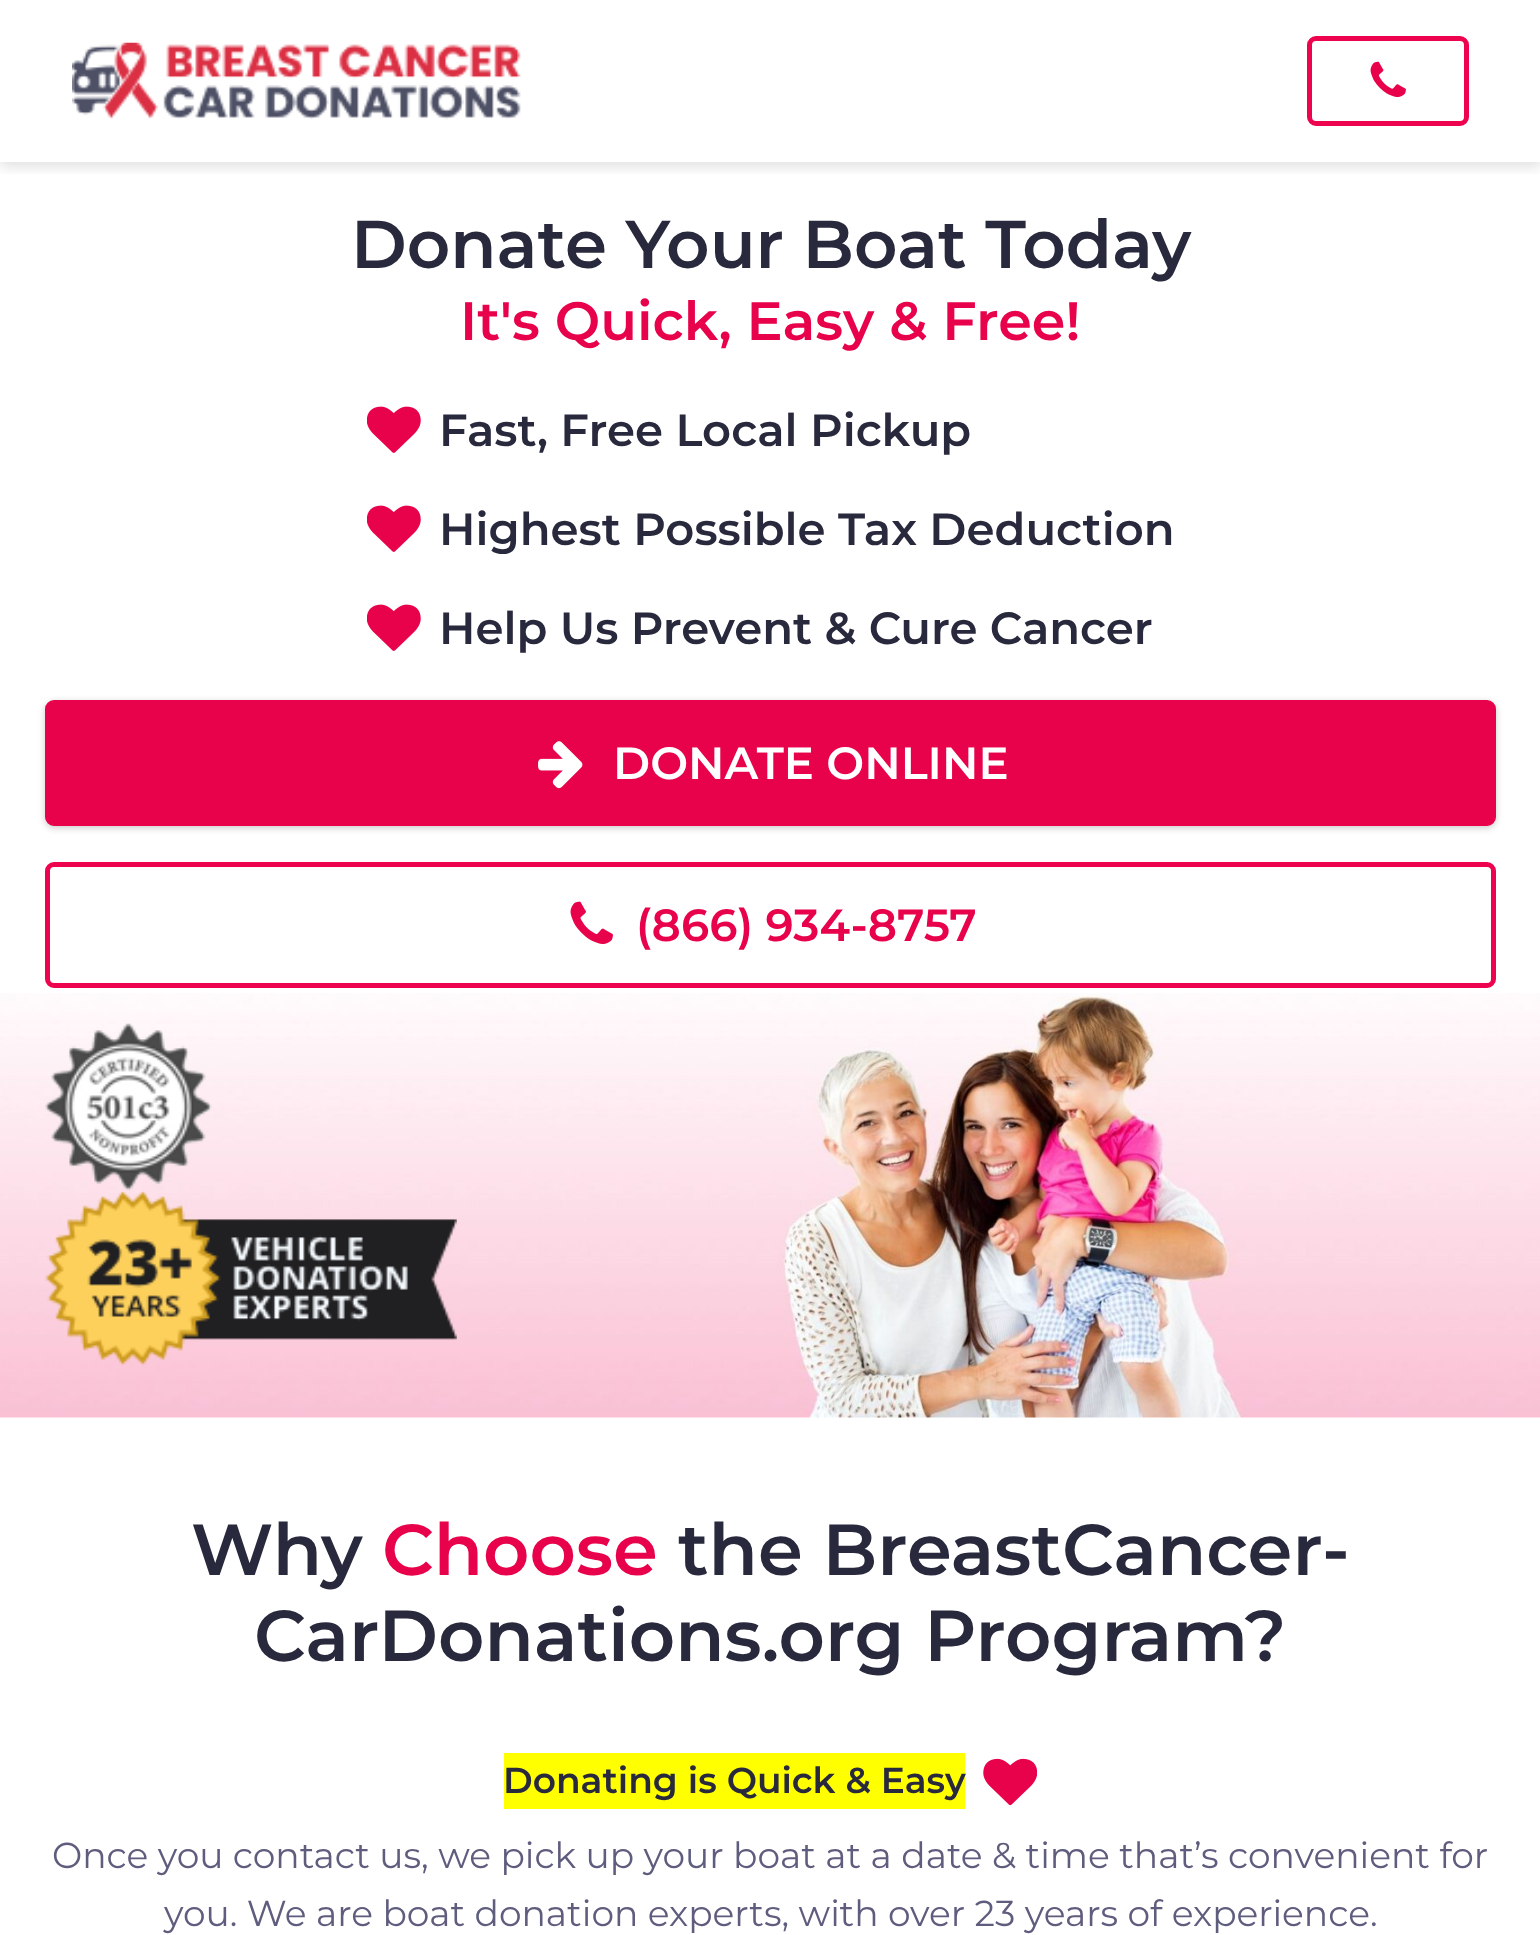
<svg xmlns="http://www.w3.org/2000/svg" width="1540" height="1935" viewBox="0 0 1540 1935">
  <defs>
    <clipPath id="clip1"><path d="M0 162h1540v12H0z"/></clipPath>
  </defs>
  <rect width="100%" height="100%" fill="#fff"/>
  <g clip-path="url(#clip1)">
    <path d="M0 5h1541v162H0z" fill="#0000001f" filter="blur(7px)"/>
  </g>
  <image x="72" y="42" width="449" height="78" href="img/1.png"/>
  <rect x="1309.5" y="38.5" width="157" height="85" rx="6.5" fill="none" stroke="#ed034e" stroke-width="5"/>
  <image x="1370" y="61" width="36" height="37" href="img/2.png"/>
  <image x="0" y="993" width="1540" height="425" href="img/3.png"/>
  <image x="367" y="406" width="54" height="47" href="img/4.png"/>
  <image x="367" y="505" width="54" height="47" href="img/4.png"/>
  <image x="367" y="604" width="54" height="47" href="img/4.png"/>
  <rect x="45" y="702" width="1451" height="126" rx="9" fill="#00000033" filter="blur(3.5px)"/>
  <rect x="47.5" y="702.5" width="1446" height="121" rx="6.5" fill="#e8024b" stroke="#e8024b" stroke-width="5"/>
  <image x="538" y="741" width="45" height="48" href="img/5.png"/>
  <rect x="47.5" y="864.5" width="1446" height="121" rx="6.5" fill="none" stroke="#ed034e" stroke-width="5"/>
  <image x="570" y="901" width="43" height="43" href="img/6.png"/>
  <image x="45" y="1023" width="167" height="168" href="img/7.png"/>
  <image x="45" y="1190" width="412" height="176" href="img/8.png"/>
  <path d="M504 1753h461v56H504z" fill="#ff0"/>
  <image x="983" y="1758" width="54" height="48" href="img/9.png"/>
  <text x="351" y="268" font-family="Montserrat" font-size="67.5" font-weight="600" fill="#29293d">Donate Your Boat Today</text>
  <text x="460" y="340" font-family="Montserrat" font-size="54" font-weight="600" fill="#e8024b">It's Quick, Easy &amp; Free!</text>
  <g font-family="Montserrat" font-size="45" font-weight="600" fill="#29293d">
    <text x="439" y="446">Fast, Free Local Pickup</text>
    <text x="439" y="545">Highest Possible Tax Deduction</text>
    <text x="439" y="644">Help Us Prevent &amp; Cure Cancer</text>
  </g>
  <text x="613" y="779" font-family="Montserrat" font-size="45" font-weight="600" fill="#fff">DONATE ONLINE</text>
  <text x="636" y="941" font-family="Montserrat" font-size="45" font-weight="600" fill="#e8024b">(866) 934-8757</text>
  <text x="191" y="1575" font-family="Montserrat" font-size="72" font-weight="600" fill="#29293d">Why</text>
  <text x="382" y="1575" font-family="Montserrat" font-size="72" font-weight="600" fill="#e8024b">Choose</text>
  <g font-family="Montserrat" font-size="72" font-weight="600" fill="#29293d">
    <text x="678" y="1575">the BreastCancer-</text>
    <text x="254" y="1661">CarDonations.org Program?</text>
  </g>
  <text x="503" y="1793" font-family="Montserrat" font-size="36" font-weight="600" fill="#29293d">Donating is Quick &amp; Easy</text>
  <g font-family="Montserrat" font-size="36" fill="#5f5d7e">
    <text x="52" y="1868">Once you contact us, we pick up your boat at a date &amp; time that’s convenient for</text>
    <text x="164" y="1926">you. We are boat donation experts, with over 23 years of experience.</text>
  </g>
</svg>
